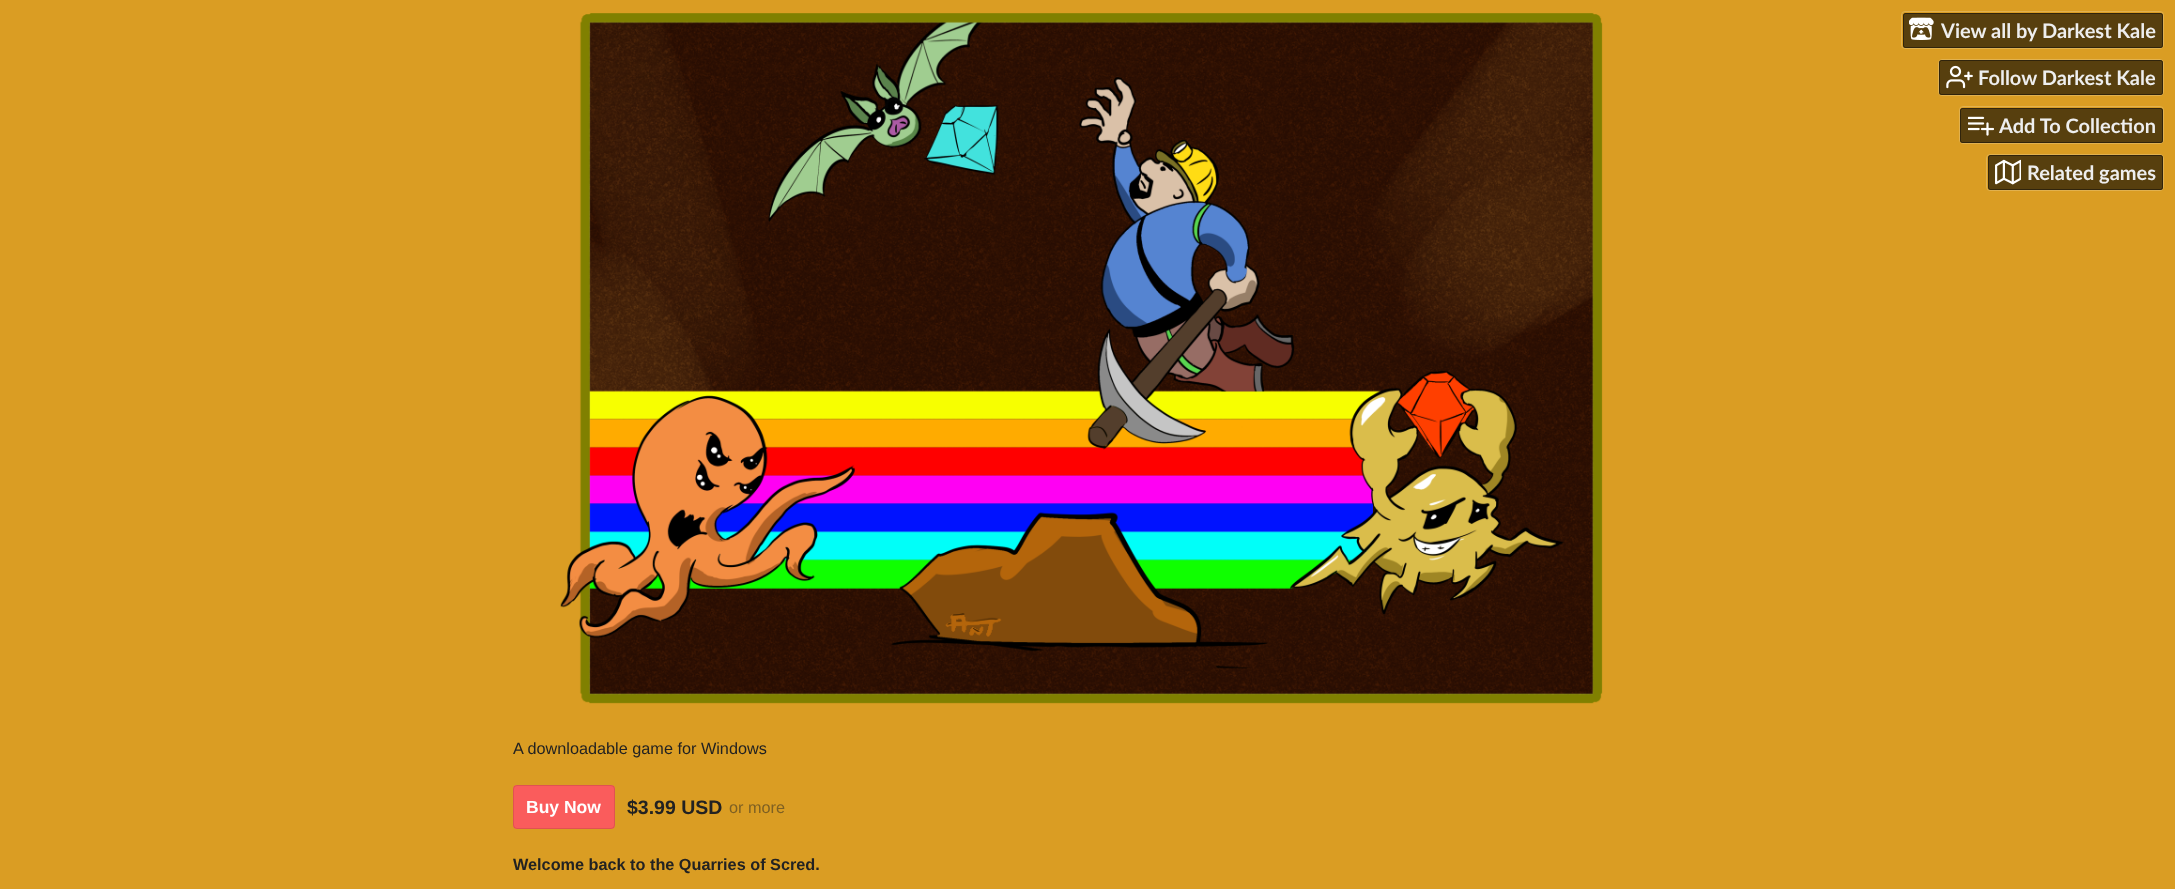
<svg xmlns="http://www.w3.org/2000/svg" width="2175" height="889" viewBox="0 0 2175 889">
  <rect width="100%" height="100%" fill="#da9d23"/>
  <rect x="1901.5" y="11.5" width="262" height="37" rx="3.5" fill="none" stroke="#e1b14f"/>
  <rect x="1903" y="13" width="260" height="35" rx="2.5" fill="#00000099"/>
  <rect x="1903.5" y="13.5" width="259" height="34" rx="2" fill="none" stroke="#0a0a0a80"/>
  <image x="1909" y="17" width="25" height="23" href="img/1.png"/>
  <rect x="1938.5" y="59.5" width="225" height="36" rx="3.5" fill="none" stroke="#e1b14f"/>
  <rect x="1939" y="60" width="224" height="35" rx="2.5" fill="#00000099"/>
  <rect x="1939.5" y="60.5" width="223" height="34" rx="2" fill="none" stroke="#0a0a0a80"/>
  <image x="1946" y="65" width="27" height="24" href="img/2.png"/>
  <rect x="1959.5" y="106.5" width="204" height="37" rx="3.5" fill="none" stroke="#e1b14f"/>
  <rect x="1960" y="108" width="203" height="35" rx="2.5" fill="#00000099"/>
  <rect x="1960.5" y="108.5" width="202" height="34" rx="2" fill="none" stroke="#0a0a0a80"/>
  <image x="1968" y="116" width="26" height="20" href="img/3.png"/>
  <rect x="1986.5" y="154.5" width="177" height="36" rx="3.5" fill="none" stroke="#e1b14f"/>
  <rect x="1988" y="155" width="175" height="35" rx="2.5" fill="#00000099"/>
  <rect x="1988.5" y="155.5" width="174" height="34" rx="2" fill="none" stroke="#0a0a0a80"/>
  <image x="1995" y="159" width="26" height="26" href="img/4.png"/>
  <image x="560" y="13" width="1043" height="691" href="img/5.png"/>
  <rect x="513" y="785" width="102" height="44" rx="4" fill="#fa5c5c"/>
  <rect x="513.5" y="785.5" width="101" height="43" rx="3.5" fill="none" stroke="#0000001a"/>
  <g font-family="Lato" font-size="20" font-weight="bold" fill="#eee">
    <text x="1941" y="38">View all by Darkest Kale</text>
    <text x="1978" y="85">Follow Darkest Kale</text>
    <text x="1999" y="133">Add To Collection</text>
    <text x="2027" y="180">Related games</text>
  </g>
  <text x="513" y="754" font-family="Liberation Sans" font-size="16.25" fill="#222">A downloadable game for Windows</text>
  <text x="526" y="813" font-family="Liberation Sans" font-size="17.5" font-weight="bold" fill="#fff">Buy Now</text>
  <text x="627" y="814" font-family="Liberation Sans" font-size="19.5" font-weight="bold" fill="#222">$3.99 USD</text>
  <text x="729" y="813" font-family="Liberation Sans" font-size="16.25" fill="#7e6023">or more</text>
  <text x="513" y="870" font-family="Liberation Sans" font-size="16.25" font-weight="bold" fill="#222">Welcome back to the Quarries of Scred.</text>
</svg>
